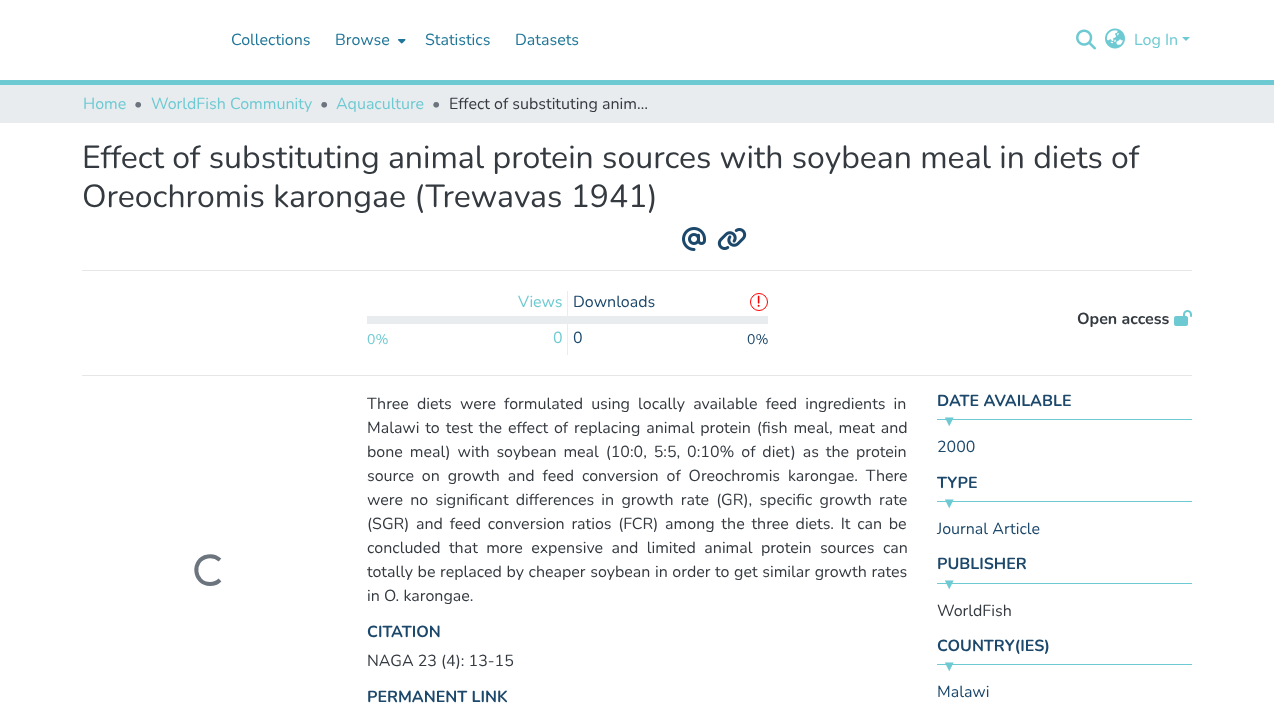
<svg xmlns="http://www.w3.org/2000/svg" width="1274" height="721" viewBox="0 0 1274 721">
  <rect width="100%" height="100%" fill="#fff"/>
  <path d="M0 80h1274v5H0z" fill="#6ecad2"/>
  <image x="398" y="39" width="8" height="5" href="img/1.png"/>
  <image x="1076" y="29" width="20" height="21" href="img/2.png"/>
  <image x="1105" y="28" width="20" height="21" href="img/3.png"/>
  <path d="M1182 37H1190L1186 41Z" fill="#6ecad2"/>
  <path d="M0 85h1274v38H0z" fill="#e9ecef"/>
  <image x="682" y="227" width="24" height="24" href="img/4.png"/>
  <image x="717" y="228" width="30" height="22" href="img/5.png"/>
  <path d="M82 270h1110v1H82z" fill="#e6e6e6"/>
  <path d="M367 316h200v8H367z" fill="#e9ecef"/>
  <path d="M567 291h1v64H567z" fill="#eaecef"/>
  <circle cx="759" cy="302" r="8.5" fill="none" stroke="#f00"/>
  <image x="757" y="295" width="3" height="12" href="img/6.png"/>
  <path d="M568 316h200v8H568z" fill="#e9ecef"/>
  <image x="1174" y="310" width="18" height="16" href="img/7.png"/>
  <path d="M82 375h1110v1H82z" fill="#e6e6e6"/>
  <path d="M220 580C217.5 582.5 213.5 584 210 584C193.5 584 191 559.5 207.5 556.5C212 555.5 216.5 557 220 560" fill="none" stroke="#6c757d" stroke-width="4"/>
  <path d="M937 419h255v1H937z" fill="#6ecad2"/>
  <path d="M937 501h255v1H937z" fill="#6ecad2"/>
  <path d="M937 583h255v1H937z" fill="#6ecad2"/>
  <path d="M937 664h255v1H937z" fill="#6ecad2"/>
  <g font-family="Nunito" font-size="16" fill="#207698">
    <text x="231" y="45">Collections</text>
    <text x="335" y="45">Browse</text>
    <text x="425" y="45">Statistics</text>
    <text x="515" y="45">Datasets</text>
  </g>
  <g font-family="Nunito" font-size="16" fill="#6ecad2">
    <text x="1134" y="45">Log In</text>
    <text x="83" y="109">Home</text>
  </g>
  <text x="134" y="109" font-family="Nunito" font-size="16" fill="#6c757d">•</text>
  <text x="151" y="109" font-family="Nunito" font-size="16" fill="#6ecad2">WorldFish Community</text>
  <text x="320" y="109" font-family="Nunito" font-size="16" fill="#6c757d">•</text>
  <text x="336" y="109" font-family="Nunito" font-size="16" fill="#6ecad2">Aquaculture</text>
  <text x="432" y="109" font-family="Nunito" font-size="16" fill="#6c757d">•</text>
  <text x="449" y="109" font-family="Nunito" font-size="16" fill="#343a40">Effect of substituting anim…</text>
  <g font-family="Nunito" font-size="32" fill="#343a40">
    <text x="82" y="168">Effect of substituting animal protein sources with soybean meal in diets of</text>
    <text x="82" y="207">Oreochromis karongae (Trewavas 1941)</text>
  </g>
  <text x="518" y="307" font-family="Nunito" font-size="16" fill="#6ecad2">Views</text>
  <text x="367" y="344" font-family="Nunito" font-size="14" fill="#6ecad2">0%</text>
  <text x="553" y="343" font-family="Nunito" font-size="16" fill="#6ecad2">0</text>
  <g font-family="Nunito" font-size="16" fill="#1c486b">
    <text x="573" y="307">Downloads</text>
    <text x="573" y="343">0</text>
  </g>
  <text x="747" y="344" font-family="Nunito" font-size="14" fill="#1c486b">0%</text>
  <text x="1077" y="324" font-family="Nunito" font-size="16" font-weight="bold" fill="#343a40">Open access</text>
  <g font-family="Nunito" font-size="16" fill="#343a40">
    <text x="367" y="409" word-spacing="4">Three diets were formulated using locally available feed ingredients in</text>
    <text x="367" y="433" word-spacing="1.75">Malawi to test the effect of replacing animal protein (fish meal, meat and</text>
    <text x="367" y="457" word-spacing="2.75">bone meal) with soybean meal (10:0, 5:5, 0:10% of diet) as the protein</text>
    <text x="367" y="481" word-spacing="3.75">source on growth and feed conversion of Oreochromis karongae. There</text>
    <text x="367" y="505" word-spacing="3.1">were no significant differences in growth rate (GR), specific growth rate</text>
    <text x="367" y="529" word-spacing="2.6">(SGR) and feed conversion ratios (FCR) among the three diets. It can be</text>
    <text x="367" y="553" word-spacing="4.25">concluded that more expensive and limited animal protein sources can</text>
    <text x="367" y="577" word-spacing="0.5">totally be replaced by cheaper soybean in order to get similar growth rates</text>
    <text x="367" y="601">in O. karongae.</text>
  </g>
  <text x="367" y="637" font-family="Nunito" font-size="16" font-weight="bold" fill="#1c486b">CITATION</text>
  <text x="367" y="666" font-family="Nunito" font-size="16" fill="#343a40">NAGA 23 (4): 13-15</text>
  <g font-family="Nunito" font-size="16" font-weight="bold" fill="#1c486b">
    <text x="367" y="702">PERMANENT LINK</text>
    <text x="937" y="406">DATE AVAILABLE</text>
  </g>
  <text x="945" y="426" font-family="DejaVu Sans" font-size="16" font-weight="bold" fill="#6ecad2">▾</text>
  <text x="937" y="452" font-family="Nunito" font-size="16" fill="#1c486b">2000</text>
  <text x="937" y="488" font-family="Nunito" font-size="16" font-weight="bold" fill="#1c486b">TYPE</text>
  <text x="945" y="508" font-family="DejaVu Sans" font-size="16" font-weight="bold" fill="#6ecad2">▾</text>
  <text x="937" y="534" font-family="Nunito" font-size="16" fill="#1c486b">Journal Article</text>
  <text x="937" y="569" font-family="Nunito" font-size="16" font-weight="bold" fill="#1c486b">PUBLISHER</text>
  <text x="945" y="589" font-family="DejaVu Sans" font-size="16" font-weight="bold" fill="#6ecad2">▾</text>
  <text x="937" y="616" font-family="Nunito" font-size="16" fill="#343a40">WorldFish</text>
  <text x="937" y="651" font-family="Nunito" font-size="16" font-weight="bold" fill="#1c486b">COUNTRY(IES)</text>
  <text x="945" y="671" font-family="DejaVu Sans" font-size="16" font-weight="bold" fill="#6ecad2">▾</text>
  <text x="937" y="697" font-family="Nunito" font-size="16" fill="#1c486b">Malawi</text>
</svg>
